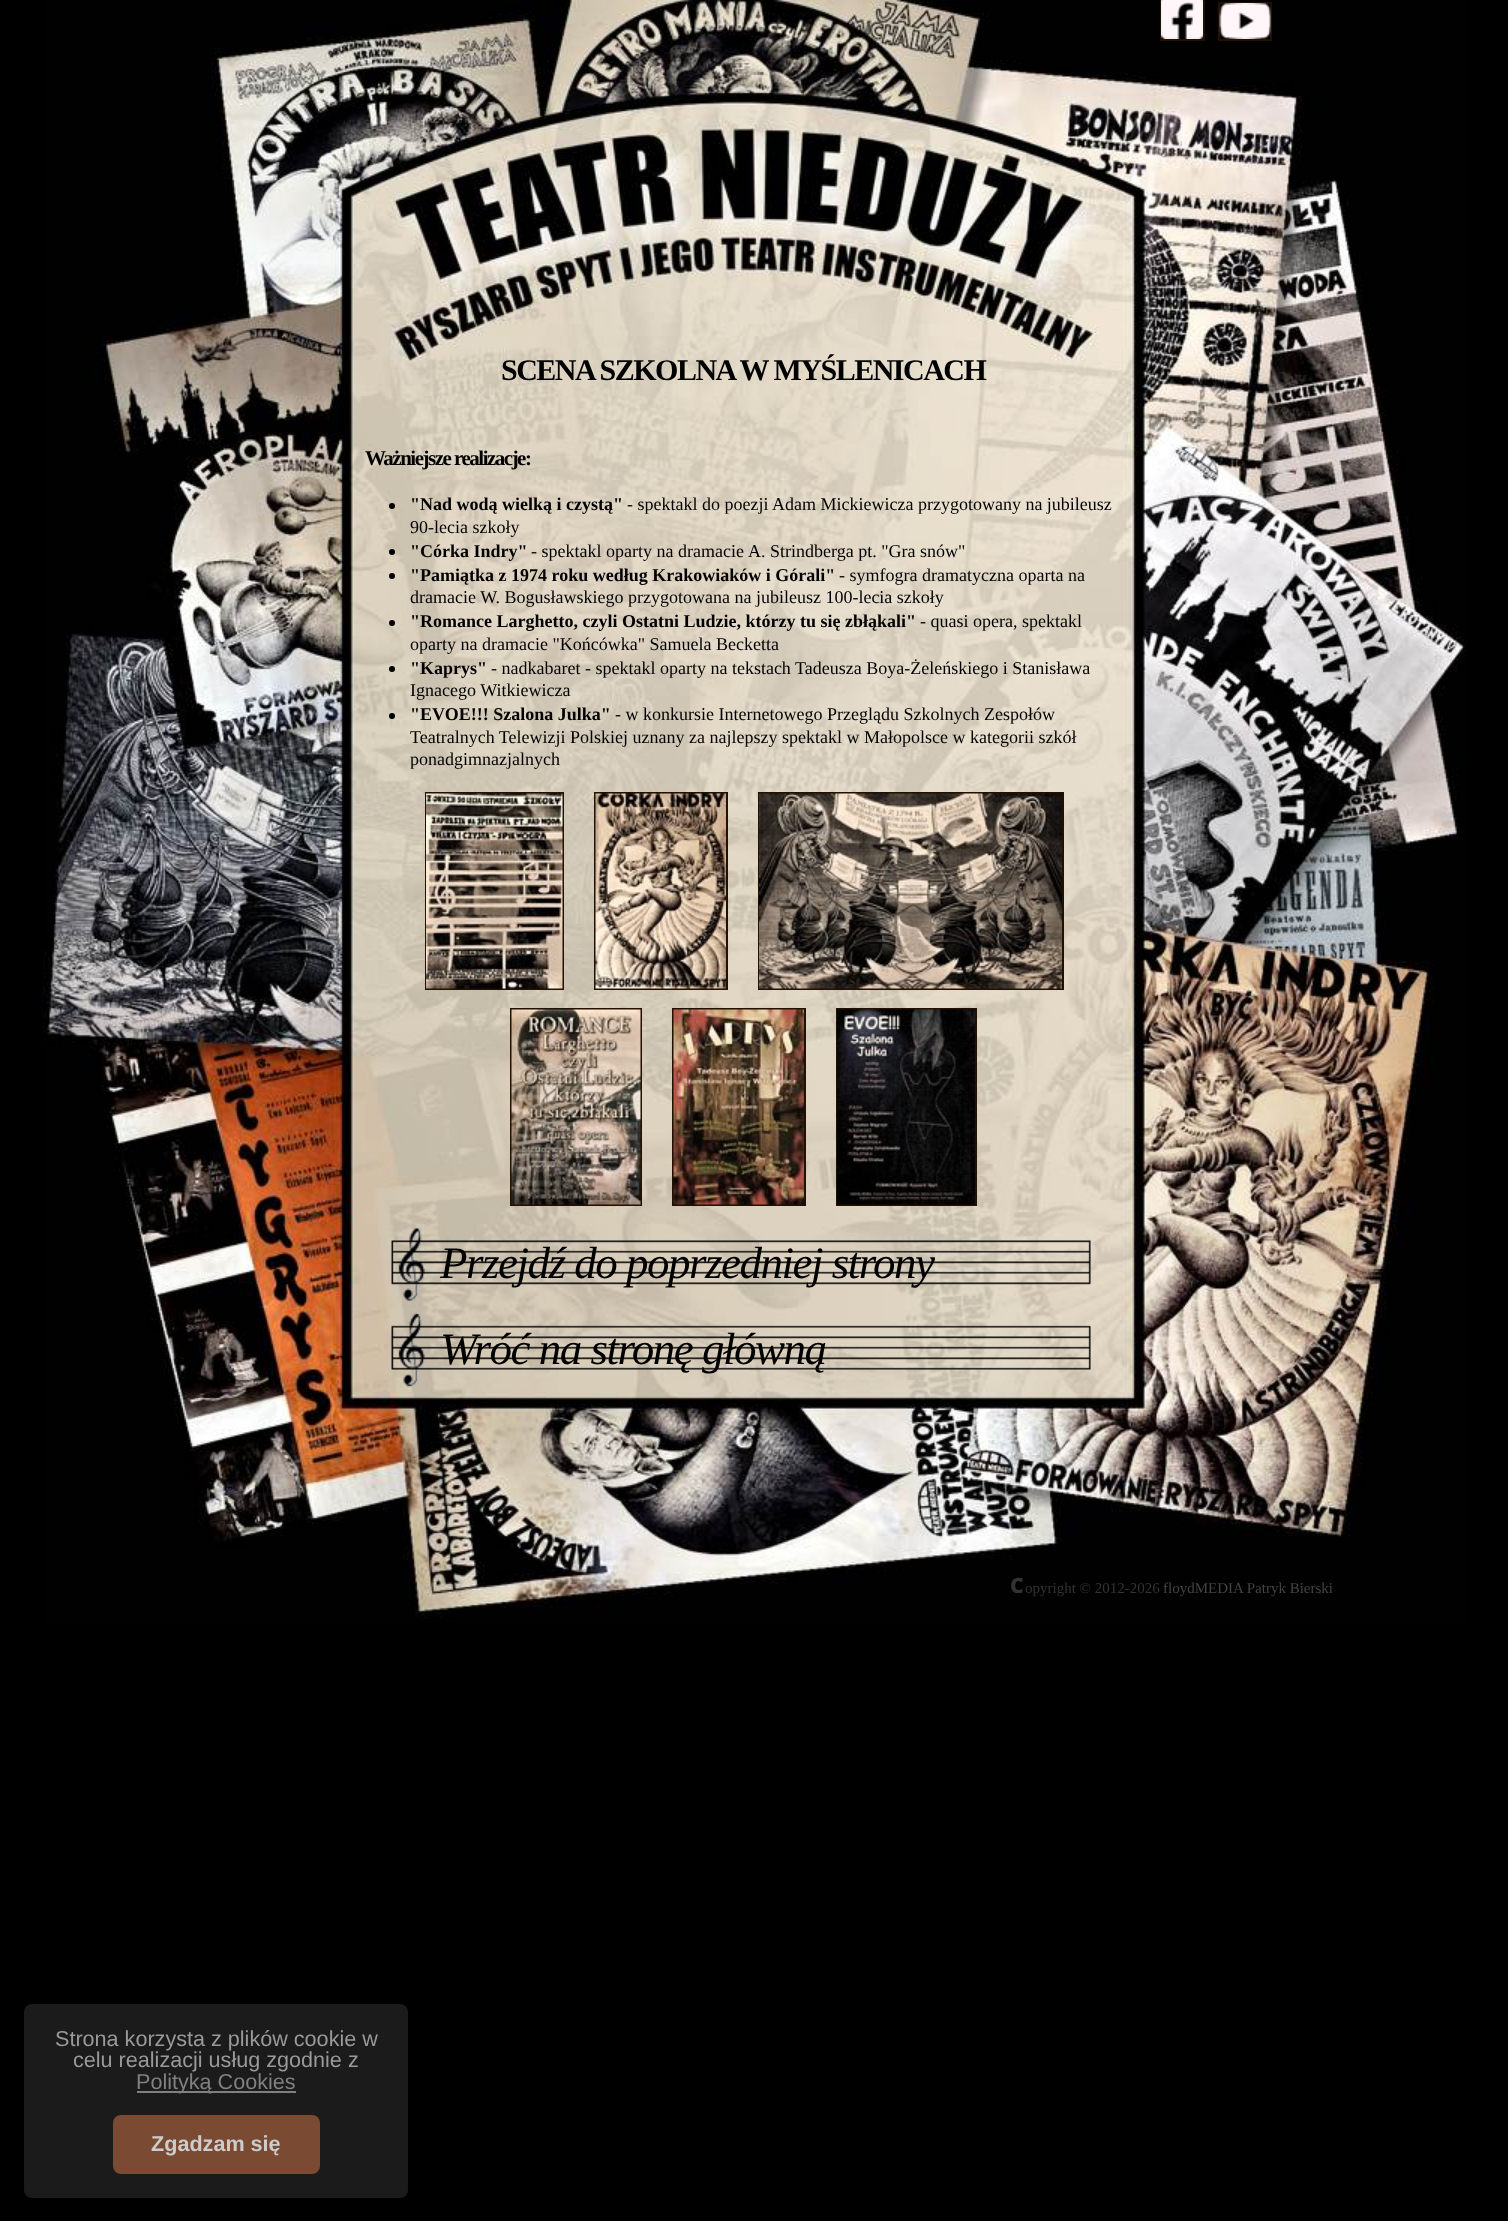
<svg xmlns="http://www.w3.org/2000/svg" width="1508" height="2221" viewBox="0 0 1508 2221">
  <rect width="100%" height="100%" fill="#000"/>
  <image x="42" y="0" width="1425" height="1623" href="img/1.png"/>
  <path d="M1161 -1h43v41H1161z" fill="none" stroke="#210" stroke-width="2"/>
  <image x="1161" y="0" width="42" height="39" href="img/2.png"/>
  <path d="M1219 3h52v37H1219z" fill="none" stroke="#210" stroke-width="2"/>
  <image x="1219" y="3" width="52" height="36" href="img/3.png"/>
  <circle cx="392" cy="506" r="3" fill="#000"/>
  <circle cx="392" cy="552" r="3" fill="#000"/>
  <circle cx="392" cy="576" r="3" fill="#000"/>
  <circle cx="392" cy="623" r="3" fill="#000"/>
  <circle cx="392" cy="669" r="3" fill="#000"/>
  <circle cx="392" cy="716" r="3" fill="#000"/>
  <path d="M426 793h137v196H426z" fill="none" stroke="#210" stroke-width="2"/>
  <path d="M595 793h132v196H595z" fill="none" stroke="#210" stroke-width="2"/>
  <path d="M759 793h304v196H759z" fill="none" stroke="#210" stroke-width="2"/>
  <image x="426" y="793" width="137" height="196" href="img/4.png"/>
  <image x="595" y="793" width="131" height="196" href="img/5.png"/>
  <image x="759" y="793" width="303" height="196" href="img/6.png"/>
  <path d="M511 1009h130v196H511z" fill="none" stroke="#210" stroke-width="2"/>
  <path d="M673 1009h132v196H673z" fill="none" stroke="#210" stroke-width="2"/>
  <path d="M837 1009h139v196H837z" fill="none" stroke="#210" stroke-width="2"/>
  <image x="511" y="1009" width="130" height="196" href="img/7.png"/>
  <image x="673" y="1009" width="131" height="196" href="img/8.png"/>
  <image x="837" y="1009" width="138" height="196" href="img/9.png"/>
  <image x="391" y="1228" width="700" height="73" href="img/10.png"/>
  <image x="391" y="1313" width="700" height="74" href="img/11.png"/>
  <rect x="24" y="2004" width="384" height="194" rx="8" fill="#1b1b1b"/>
  <path d="M137 2091h159v2H137z" fill="#808080"/>
  <rect x="113" y="2115" width="207" height="59" rx="8" fill="#7b4a32"/>
  <text x="501" y="380" font-family="Liberation Serif" font-size="30" font-weight="bold" letter-spacing="-1.5" fill="#000">SCENA SZKOLNA W MYŚLENICACH</text>
  <text x="365" y="465" font-family="Liberation Serif" font-size="21" font-weight="bold" letter-spacing="-1.5" fill="#000">Ważniejsze realizacje:</text>
  <text x="410" y="510" font-family="Liberation Serif" font-size="18" font-weight="bold" fill="#000">"Nad wodą wielką i czystą"</text>
  <g font-family="Liberation Serif" font-size="18" fill="#000">
    <text x="627" y="510">- spektakl do poezji Adam Mickiewicza przygotowany na jubileusz</text>
    <text x="410" y="533">90-lecia szkoły</text>
  </g>
  <text x="410" y="557" font-family="Liberation Serif" font-size="18" font-weight="bold" fill="#000">"Córka Indry"</text>
  <g font-family="Liberation Serif" font-size="18" fill="#000">
    <text x="531" y="557">- spektakl oparty na dramacie</text>
    <text x="748" y="557">A. Strindberga pt. "Gra snów"</text>
  </g>
  <text x="410" y="581" font-family="Liberation Serif" font-size="18" font-weight="bold" fill="#000">"Pamiątka z 1974 roku według Krakowiaków i Górali"</text>
  <g font-family="Liberation Serif" font-size="18" fill="#000">
    <text x="839" y="581">- symfogra dramatyczna oparta na</text>
    <text x="410" y="603">dramacie W. Bogusławskiego przygotowana na jubileusz 100-lecia szkoły</text>
  </g>
  <text x="410" y="627" font-family="Liberation Serif" font-size="18" font-weight="bold" fill="#000">"Romance Larghetto, czyli Ostatni Ludzie, którzy tu się zbłąkali"</text>
  <g font-family="Liberation Serif" font-size="18" fill="#000">
    <text x="920" y="627">- quasi opera, spektakl</text>
    <text x="410" y="650">oparty na dramacie "Końcówka" Samuela Becketta</text>
  </g>
  <text x="410" y="674" font-family="Liberation Serif" font-size="18" font-weight="bold" fill="#000">"Kaprys"</text>
  <g font-family="Liberation Serif" font-size="18" fill="#000">
    <text x="491" y="674">- nadkabaret - spektakl oparty na tekstach Tadeusza Boya-Żeleńskiego i Stanisława</text>
    <text x="410" y="696">Ignacego Witkiewicza</text>
  </g>
  <text x="410" y="720" font-family="Liberation Serif" font-size="18" font-weight="bold" fill="#000">"EVOE!!! Szalona Julka"</text>
  <g font-family="Liberation Serif" font-size="18" fill="#000">
    <text x="615" y="720">- w konkursie Internetowego Przeglądu Szkolnych Zespołów</text>
    <text x="410" y="743">Teatralnych Telewizji Polskiej uznany za najlepszy spektakl w Małopolsce w kategorii szkół</text>
    <text x="410" y="765">ponadgimnazjalnych</text>
  </g>
  <g font-family="Liberation Serif" font-size="45" font-style="italic" letter-spacing="-1.5" fill="#000">
    <text x="440" y="1278">Przejdź do poprzedniej strony</text>
    <text x="440" y="1364">Wróć na stronę główną</text>
  </g>
  <text x="1010" y="1593" font-family="Noto Sans" font-size="21" font-weight="900" fill="#333">C</text>
  <text x="1025" y="1593" font-family="Liberation Serif" font-size="15" fill="#333">opyright © 2012-2026</text>
  <text x="1163" y="1593" font-family="Liberation Serif" font-size="15" fill="#444">floydMEDIA Patryk Bierski</text>
  <g font-family="Liberation Sans" font-size="21.6" fill="#999">
    <text x="55" y="2046">Strona korzysta z plików cookie w</text>
    <text x="73" y="2067">celu realizacji usług zgodnie z</text>
  </g>
  <text x="136" y="2089" font-family="Liberation Sans" font-size="21.6" fill="#808080">Polityką Cookies</text>
  <text x="151" y="2151" font-family="Liberation Sans" font-size="21.6" font-weight="bold" fill="#ccc">Zgadzam się</text>
</svg>
